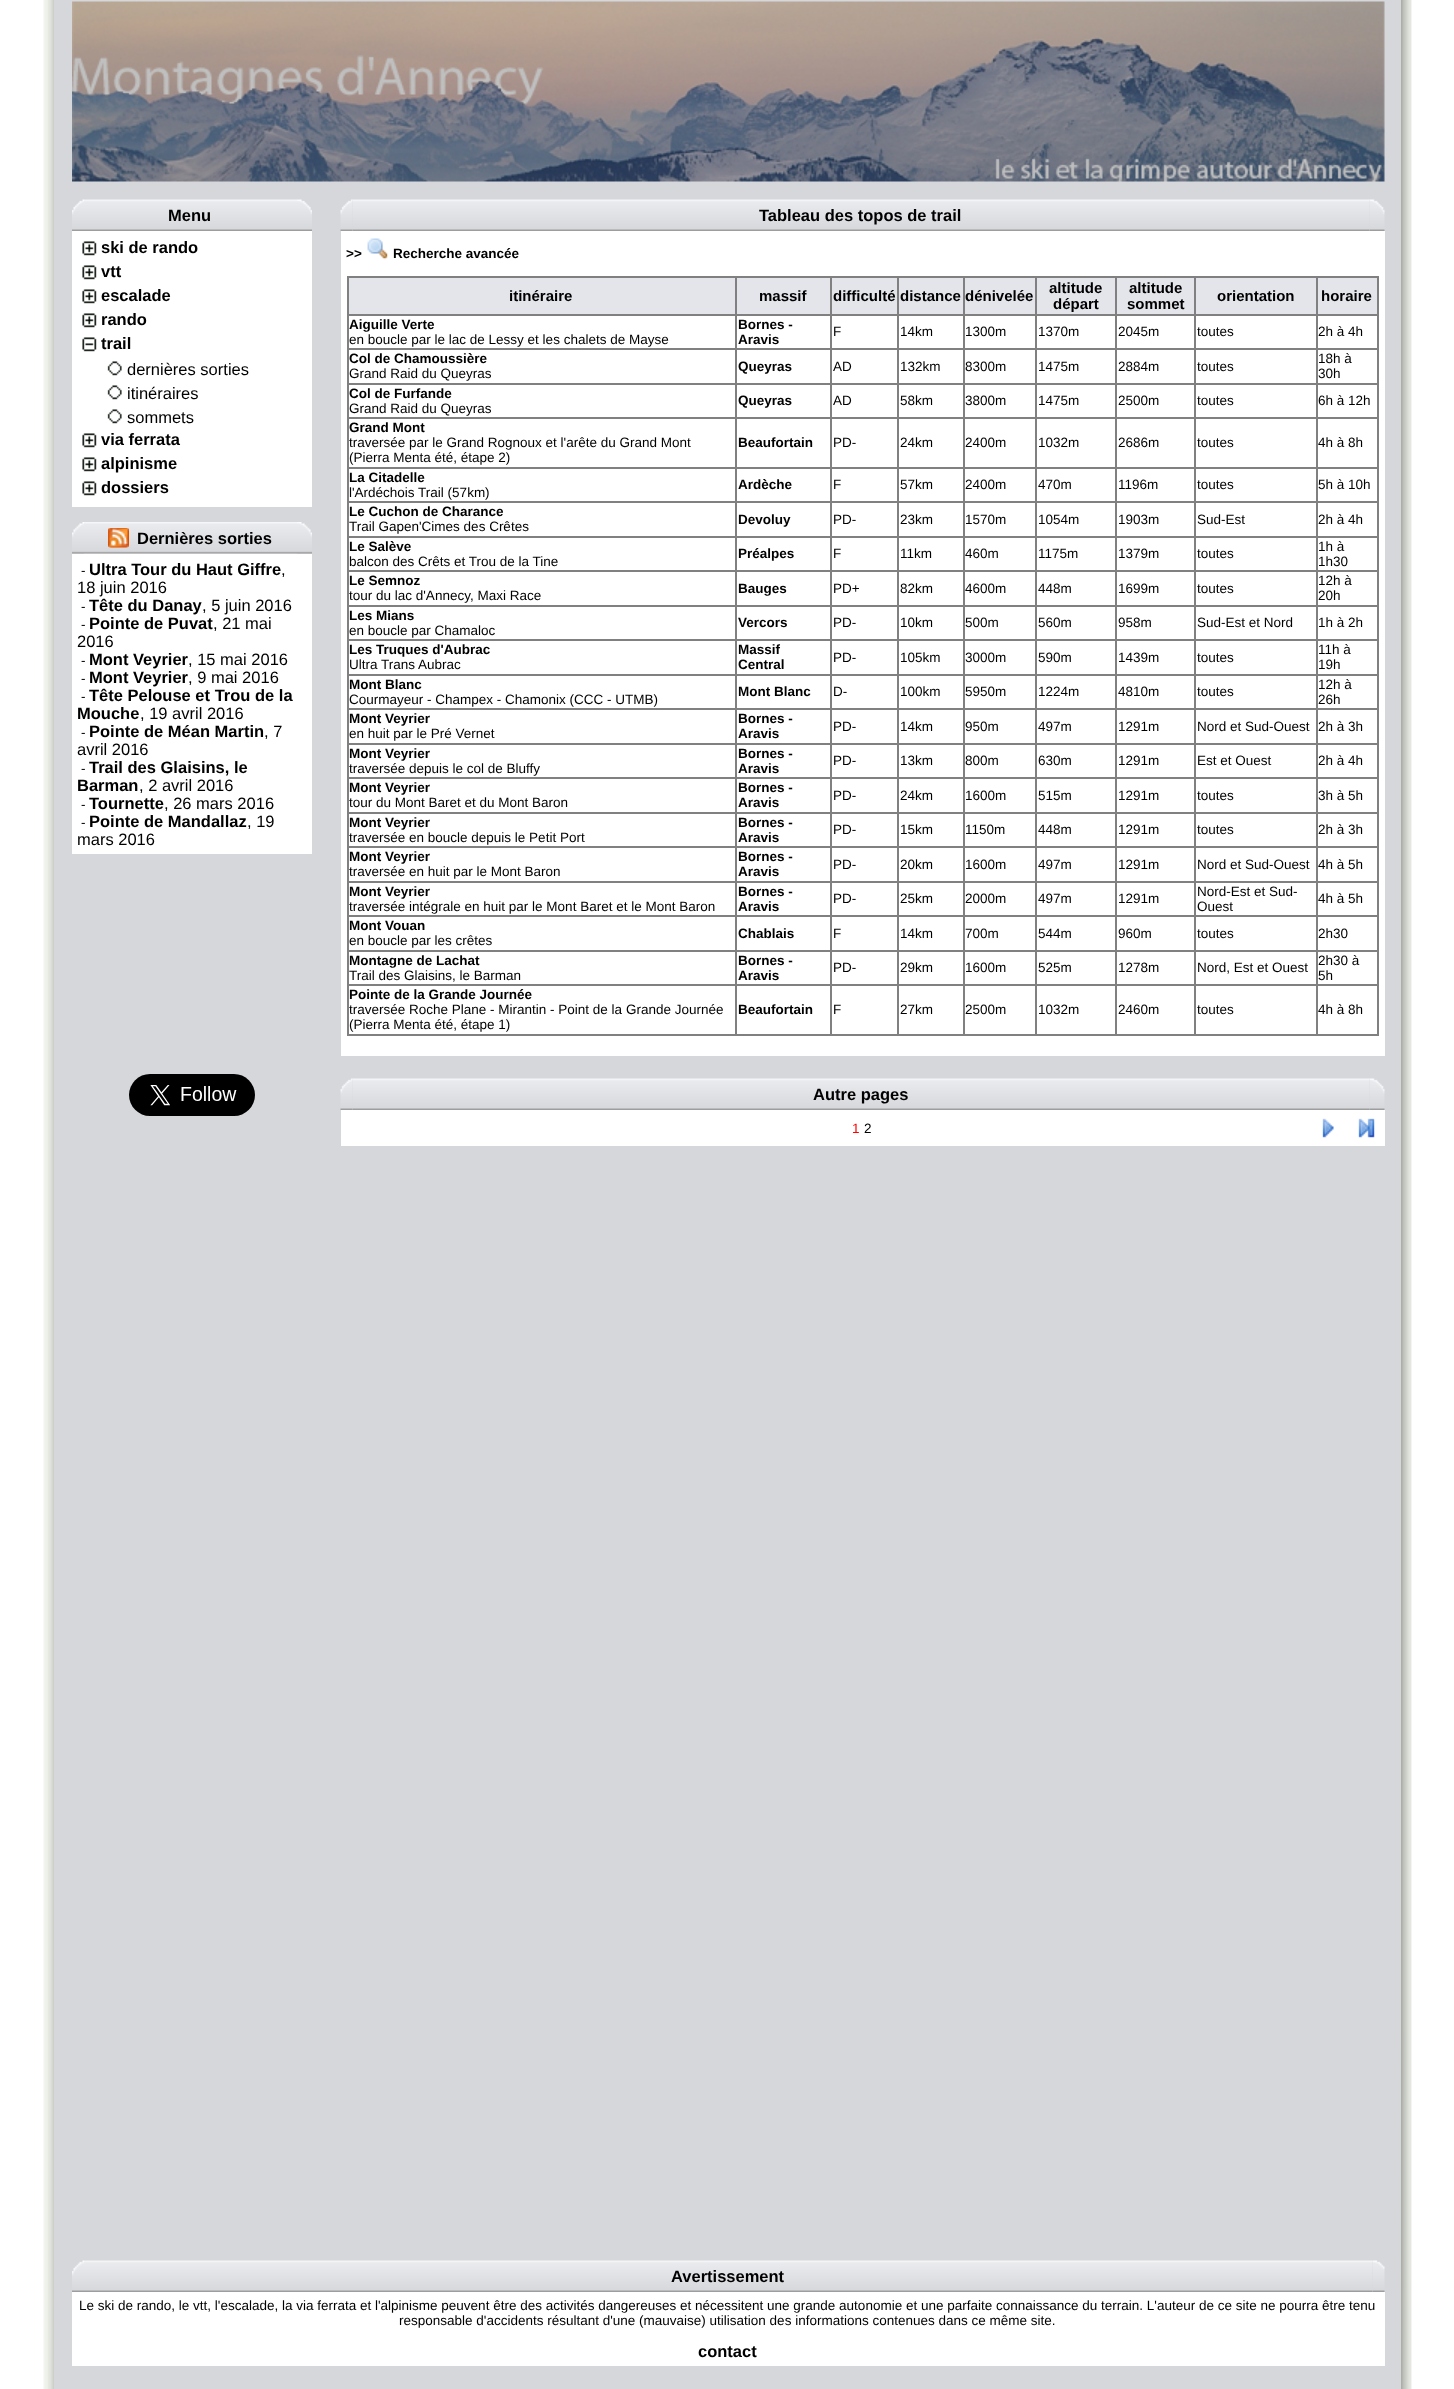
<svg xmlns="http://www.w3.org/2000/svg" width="1454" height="2389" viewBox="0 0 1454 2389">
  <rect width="100%" height="100%" fill="#fff"/>
  <image x="43" y="0" width="11" height="2389" href="img/1.png"/>
  <path d="M54 0h1332v2389H54z" fill="#d6d7db"/>
  <path d="M1386 0h15v2389H1386z" fill="#d6d7db"/>
  <image x="1401" y="0" width="11" height="2389" href="img/2.png"/>
  <image x="72" y="1" width="1313" height="181" href="img/3.png"/>
  <image x="72" y="199" width="12" height="32" href="img/4.png"/>
  <image x="84" y="199" width="213" height="32" href="img/5.png"/>
  <image x="297" y="199" width="15" height="32" href="img/6.png"/>
  <path d="M72 231h240v276H72z" fill="#fff"/>
  <image x="82" y="241" width="15" height="15" href="img/7.png"/>
  <image x="82" y="265" width="15" height="15" href="img/7.png"/>
  <image x="82" y="289" width="15" height="15" href="img/7.png"/>
  <image x="82" y="313" width="15" height="15" href="img/7.png"/>
  <image x="82" y="337" width="15" height="15" href="img/8.png"/>
  <image x="107" y="361" width="15" height="15" href="img/9.png"/>
  <image x="107" y="385" width="15" height="15" href="img/9.png"/>
  <image x="107" y="409" width="15" height="15" href="img/9.png"/>
  <image x="82" y="433" width="15" height="15" href="img/7.png"/>
  <image x="82" y="457" width="15" height="15" href="img/7.png"/>
  <image x="82" y="481" width="15" height="15" href="img/7.png"/>
  <image x="72" y="522" width="12" height="32" href="img/10.png"/>
  <path d="M84 553h213v1H84z" fill="#e4e5eb"/>
  <image x="84" y="522" width="213" height="32" href="img/11.png"/>
  <image x="108" y="528" width="21" height="20" href="img/12.png"/>
  <image x="297" y="522" width="15" height="32" href="img/13.png"/>
  <path d="M72 554h240v300H72z" fill="#fff"/>
  <image x="129" y="1074" width="126" height="42" href="img/14.png"/>
  <image x="340" y="199" width="13" height="32" href="img/15.png"/>
  <image x="352" y="199" width="1018" height="32" href="img/16.png"/>
  <image x="1369" y="199" width="16" height="32" href="img/17.png"/>
  <path d="M341 231h1044v825H341z" fill="#fff"/>
  <image x="367" y="238" width="21" height="22" href="img/18.png"/>
  <path d="M347 276h1032v2H347z" fill="#808080"/>
  <path d="M1377 276h2v759H1377z" fill="#808080"/>
  <path d="M347 1034h1032v2H347z" fill="#808080"/>
  <path d="M347 276h2v759H347z" fill="#808080"/>
  <path d="M349 278h386v36H349z" fill="#e4e5eb"/>
  <path d="M737 278h93v36H737z" fill="#e4e5eb"/>
  <path d="M1316 314h63v2H1316z" fill="#808080"/>
  <path d="M1316 348h63v2H1316z" fill="#808080"/>
  <path d="M1316 383h63v2H1316z" fill="#808080"/>
  <path d="M1316 417h63v2H1316z" fill="#808080"/>
  <path d="M1316 467h63v2H1316z" fill="#808080"/>
  <path d="M1316 501h63v2H1316z" fill="#808080"/>
  <path d="M1316 536h63v2H1316z" fill="#808080"/>
  <path d="M1316 570h63v2H1316z" fill="#808080"/>
  <path d="M1316 605h63v2H1316z" fill="#808080"/>
  <path d="M1316 639h63v2H1316z" fill="#808080"/>
  <path d="M1316 674h63v2H1316z" fill="#808080"/>
  <path d="M1316 708h63v2H1316z" fill="#808080"/>
  <path d="M1316 743h63v2H1316z" fill="#808080"/>
  <path d="M1316 777h63v2H1316z" fill="#808080"/>
  <path d="M1316 812h63v2H1316z" fill="#808080"/>
  <path d="M1316 846h63v2H1316z" fill="#808080"/>
  <path d="M1316 881h63v2H1316z" fill="#808080"/>
  <path d="M1316 915h63v2H1316z" fill="#808080"/>
  <path d="M1316 950h63v2H1316z" fill="#808080"/>
  <path d="M1316 984h63v2H1316z" fill="#808080"/>
  <path d="M1316 984h2v51H1316z" fill="#808080"/>
  <path d="M1194 984h123v2H1194z" fill="#808080"/>
  <path d="M1316 950h2v36H1316z" fill="#808080"/>
  <path d="M1194 950h123v2H1194z" fill="#808080"/>
  <path d="M1316 915h2v36H1316z" fill="#808080"/>
  <path d="M1194 915h123v2H1194z" fill="#808080"/>
  <path d="M1316 881h2v36H1316z" fill="#808080"/>
  <path d="M1194 881h123v2H1194z" fill="#808080"/>
  <path d="M1316 846h2v36H1316z" fill="#808080"/>
  <path d="M1194 846h123v2H1194z" fill="#808080"/>
  <path d="M1316 812h2v36H1316z" fill="#808080"/>
  <path d="M1194 812h123v2H1194z" fill="#808080"/>
  <path d="M1316 777h2v36H1316z" fill="#808080"/>
  <path d="M1194 777h123v2H1194z" fill="#808080"/>
  <path d="M1316 743h2v36H1316z" fill="#808080"/>
  <path d="M1194 743h123v2H1194z" fill="#808080"/>
  <path d="M1316 708h2v36H1316z" fill="#808080"/>
  <path d="M1194 708h123v2H1194z" fill="#808080"/>
  <path d="M1316 674h2v36H1316z" fill="#808080"/>
  <path d="M1194 674h123v2H1194z" fill="#808080"/>
  <path d="M1316 639h2v36H1316z" fill="#808080"/>
  <path d="M1194 639h123v2H1194z" fill="#808080"/>
  <path d="M1316 605h2v36H1316z" fill="#808080"/>
  <path d="M1194 605h123v2H1194z" fill="#808080"/>
  <path d="M1316 570h2v36H1316z" fill="#808080"/>
  <path d="M1194 570h123v2H1194z" fill="#808080"/>
  <path d="M1316 536h2v36H1316z" fill="#808080"/>
  <path d="M1194 536h123v2H1194z" fill="#808080"/>
  <path d="M1316 501h2v36H1316z" fill="#808080"/>
  <path d="M1194 501h123v2H1194z" fill="#808080"/>
  <path d="M1316 467h2v36H1316z" fill="#808080"/>
  <path d="M1194 467h123v2H1194z" fill="#808080"/>
  <path d="M1316 417h2v51H1316z" fill="#808080"/>
  <path d="M1194 417h123v2H1194z" fill="#808080"/>
  <path d="M1316 383h2v36H1316z" fill="#808080"/>
  <path d="M1194 383h123v2H1194z" fill="#808080"/>
  <path d="M1316 348h2v36H1316z" fill="#808080"/>
  <path d="M1194 348h123v2H1194z" fill="#808080"/>
  <path d="M1316 314h2v36H1316z" fill="#808080"/>
  <path d="M1194 314h123v2H1194z" fill="#808080"/>
  <path d="M1194 984h2v51H1194z" fill="#808080"/>
  <path d="M1115 984h81v2H1115z" fill="#808080"/>
  <path d="M1194 950h2v36H1194z" fill="#808080"/>
  <path d="M1115 950h81v2H1115z" fill="#808080"/>
  <path d="M1194 915h2v36H1194z" fill="#808080"/>
  <path d="M1115 915h81v2H1115z" fill="#808080"/>
  <path d="M1194 881h2v36H1194z" fill="#808080"/>
  <path d="M1115 881h81v2H1115z" fill="#808080"/>
  <path d="M1194 846h2v36H1194z" fill="#808080"/>
  <path d="M1115 846h81v2H1115z" fill="#808080"/>
  <path d="M1194 812h2v36H1194z" fill="#808080"/>
  <path d="M1115 812h81v2H1115z" fill="#808080"/>
  <path d="M1194 777h2v36H1194z" fill="#808080"/>
  <path d="M1115 777h81v2H1115z" fill="#808080"/>
  <path d="M1194 743h2v36H1194z" fill="#808080"/>
  <path d="M1115 743h81v2H1115z" fill="#808080"/>
  <path d="M1194 708h2v36H1194z" fill="#808080"/>
  <path d="M1115 708h81v2H1115z" fill="#808080"/>
  <path d="M1194 674h2v36H1194z" fill="#808080"/>
  <path d="M1115 674h81v2H1115z" fill="#808080"/>
  <path d="M1194 639h2v36H1194z" fill="#808080"/>
  <path d="M1115 639h81v2H1115z" fill="#808080"/>
  <path d="M1194 605h2v36H1194z" fill="#808080"/>
  <path d="M1115 605h81v2H1115z" fill="#808080"/>
  <path d="M1194 570h2v36H1194z" fill="#808080"/>
  <path d="M1115 570h81v2H1115z" fill="#808080"/>
  <path d="M1194 536h2v36H1194z" fill="#808080"/>
  <path d="M1115 536h81v2H1115z" fill="#808080"/>
  <path d="M1194 501h2v36H1194z" fill="#808080"/>
  <path d="M1115 501h81v2H1115z" fill="#808080"/>
  <path d="M1194 467h2v36H1194z" fill="#808080"/>
  <path d="M1115 467h81v2H1115z" fill="#808080"/>
  <path d="M1194 417h2v51H1194z" fill="#808080"/>
  <path d="M1115 417h81v2H1115z" fill="#808080"/>
  <path d="M1194 383h2v36H1194z" fill="#808080"/>
  <path d="M1115 383h81v2H1115z" fill="#808080"/>
  <path d="M1194 348h2v36H1194z" fill="#808080"/>
  <path d="M1115 348h81v2H1115z" fill="#808080"/>
  <path d="M1194 314h2v36H1194z" fill="#808080"/>
  <path d="M1115 314h81v2H1115z" fill="#808080"/>
  <path d="M1115 984h2v51H1115z" fill="#808080"/>
  <path d="M1035 984h81v2H1035z" fill="#808080"/>
  <path d="M1115 950h2v36H1115z" fill="#808080"/>
  <path d="M1035 950h81v2H1035z" fill="#808080"/>
  <path d="M1115 915h2v36H1115z" fill="#808080"/>
  <path d="M1035 915h81v2H1035z" fill="#808080"/>
  <path d="M1115 881h2v36H1115z" fill="#808080"/>
  <path d="M1035 881h81v2H1035z" fill="#808080"/>
  <path d="M1115 846h2v36H1115z" fill="#808080"/>
  <path d="M1035 846h81v2H1035z" fill="#808080"/>
  <path d="M1115 812h2v36H1115z" fill="#808080"/>
  <path d="M1035 812h81v2H1035z" fill="#808080"/>
  <path d="M1115 777h2v36H1115z" fill="#808080"/>
  <path d="M1035 777h81v2H1035z" fill="#808080"/>
  <path d="M1115 743h2v36H1115z" fill="#808080"/>
  <path d="M1035 743h81v2H1035z" fill="#808080"/>
  <path d="M1115 708h2v36H1115z" fill="#808080"/>
  <path d="M1035 708h81v2H1035z" fill="#808080"/>
  <path d="M1115 674h2v36H1115z" fill="#808080"/>
  <path d="M1035 674h81v2H1035z" fill="#808080"/>
  <path d="M1115 639h2v36H1115z" fill="#808080"/>
  <path d="M1035 639h81v2H1035z" fill="#808080"/>
  <path d="M1115 605h2v36H1115z" fill="#808080"/>
  <path d="M1035 605h81v2H1035z" fill="#808080"/>
  <path d="M1115 570h2v36H1115z" fill="#808080"/>
  <path d="M1035 570h81v2H1035z" fill="#808080"/>
  <path d="M1115 536h2v36H1115z" fill="#808080"/>
  <path d="M1035 536h81v2H1035z" fill="#808080"/>
  <path d="M1115 501h2v36H1115z" fill="#808080"/>
  <path d="M1035 501h81v2H1035z" fill="#808080"/>
  <path d="M1115 467h2v36H1115z" fill="#808080"/>
  <path d="M1035 467h81v2H1035z" fill="#808080"/>
  <path d="M1115 417h2v51H1115z" fill="#808080"/>
  <path d="M1035 417h81v2H1035z" fill="#808080"/>
  <path d="M1115 383h2v36H1115z" fill="#808080"/>
  <path d="M1035 383h81v2H1035z" fill="#808080"/>
  <path d="M1115 348h2v36H1115z" fill="#808080"/>
  <path d="M1035 348h81v2H1035z" fill="#808080"/>
  <path d="M1115 314h2v36H1115z" fill="#808080"/>
  <path d="M1035 314h81v2H1035z" fill="#808080"/>
  <path d="M1035 984h2v51H1035z" fill="#808080"/>
  <path d="M963 984h74v2H963z" fill="#808080"/>
  <path d="M1035 950h2v36H1035z" fill="#808080"/>
  <path d="M963 950h74v2H963z" fill="#808080"/>
  <path d="M1035 915h2v36H1035z" fill="#808080"/>
  <path d="M963 915h74v2H963z" fill="#808080"/>
  <path d="M1035 881h2v36H1035z" fill="#808080"/>
  <path d="M963 881h74v2H963z" fill="#808080"/>
  <path d="M1035 846h2v36H1035z" fill="#808080"/>
  <path d="M963 846h74v2H963z" fill="#808080"/>
  <path d="M1035 812h2v36H1035z" fill="#808080"/>
  <path d="M963 812h74v2H963z" fill="#808080"/>
  <path d="M1035 777h2v36H1035z" fill="#808080"/>
  <path d="M963 777h74v2H963z" fill="#808080"/>
  <path d="M1035 743h2v36H1035z" fill="#808080"/>
  <path d="M963 743h74v2H963z" fill="#808080"/>
  <path d="M1035 708h2v36H1035z" fill="#808080"/>
  <path d="M963 708h74v2H963z" fill="#808080"/>
  <path d="M1035 674h2v36H1035z" fill="#808080"/>
  <path d="M963 674h74v2H963z" fill="#808080"/>
  <path d="M1035 639h2v36H1035z" fill="#808080"/>
  <path d="M963 639h74v2H963z" fill="#808080"/>
  <path d="M1035 605h2v36H1035z" fill="#808080"/>
  <path d="M963 605h74v2H963z" fill="#808080"/>
  <path d="M1035 570h2v36H1035z" fill="#808080"/>
  <path d="M963 570h74v2H963z" fill="#808080"/>
  <path d="M1035 536h2v36H1035z" fill="#808080"/>
  <path d="M963 536h74v2H963z" fill="#808080"/>
  <path d="M1035 501h2v36H1035z" fill="#808080"/>
  <path d="M963 501h74v2H963z" fill="#808080"/>
  <path d="M1035 467h2v36H1035z" fill="#808080"/>
  <path d="M963 467h74v2H963z" fill="#808080"/>
  <path d="M1035 417h2v51H1035z" fill="#808080"/>
  <path d="M963 417h74v2H963z" fill="#808080"/>
  <path d="M1035 383h2v36H1035z" fill="#808080"/>
  <path d="M963 383h74v2H963z" fill="#808080"/>
  <path d="M1035 348h2v36H1035z" fill="#808080"/>
  <path d="M963 348h74v2H963z" fill="#808080"/>
  <path d="M1035 314h2v36H1035z" fill="#808080"/>
  <path d="M963 314h74v2H963z" fill="#808080"/>
  <path d="M963 984h2v51H963z" fill="#808080"/>
  <path d="M897 984h68v2H897z" fill="#808080"/>
  <path d="M963 950h2v36H963z" fill="#808080"/>
  <path d="M897 950h68v2H897z" fill="#808080"/>
  <path d="M963 915h2v36H963z" fill="#808080"/>
  <path d="M897 915h68v2H897z" fill="#808080"/>
  <path d="M963 881h2v36H963z" fill="#808080"/>
  <path d="M897 881h68v2H897z" fill="#808080"/>
  <path d="M963 846h2v36H963z" fill="#808080"/>
  <path d="M897 846h68v2H897z" fill="#808080"/>
  <path d="M963 812h2v36H963z" fill="#808080"/>
  <path d="M897 812h68v2H897z" fill="#808080"/>
  <path d="M963 777h2v36H963z" fill="#808080"/>
  <path d="M897 777h68v2H897z" fill="#808080"/>
  <path d="M963 743h2v36H963z" fill="#808080"/>
  <path d="M897 743h68v2H897z" fill="#808080"/>
  <path d="M963 708h2v36H963z" fill="#808080"/>
  <path d="M897 708h68v2H897z" fill="#808080"/>
  <path d="M963 674h2v36H963z" fill="#808080"/>
  <path d="M897 674h68v2H897z" fill="#808080"/>
  <path d="M963 639h2v36H963z" fill="#808080"/>
  <path d="M897 639h68v2H897z" fill="#808080"/>
  <path d="M963 605h2v36H963z" fill="#808080"/>
  <path d="M897 605h68v2H897z" fill="#808080"/>
  <path d="M963 570h2v36H963z" fill="#808080"/>
  <path d="M897 570h68v2H897z" fill="#808080"/>
  <path d="M963 536h2v36H963z" fill="#808080"/>
  <path d="M897 536h68v2H897z" fill="#808080"/>
  <path d="M963 501h2v36H963z" fill="#808080"/>
  <path d="M897 501h68v2H897z" fill="#808080"/>
  <path d="M963 467h2v36H963z" fill="#808080"/>
  <path d="M897 467h68v2H897z" fill="#808080"/>
  <path d="M963 417h2v51H963z" fill="#808080"/>
  <path d="M897 417h68v2H897z" fill="#808080"/>
  <path d="M963 383h2v36H963z" fill="#808080"/>
  <path d="M897 383h68v2H897z" fill="#808080"/>
  <path d="M963 348h2v36H963z" fill="#808080"/>
  <path d="M897 348h68v2H897z" fill="#808080"/>
  <path d="M963 314h2v36H963z" fill="#808080"/>
  <path d="M897 314h68v2H897z" fill="#808080"/>
  <path d="M897 984h2v51H897z" fill="#808080"/>
  <path d="M830 984h69v2H830z" fill="#808080"/>
  <path d="M897 950h2v36H897z" fill="#808080"/>
  <path d="M830 950h69v2H830z" fill="#808080"/>
  <path d="M897 915h2v36H897z" fill="#808080"/>
  <path d="M830 915h69v2H830z" fill="#808080"/>
  <path d="M897 881h2v36H897z" fill="#808080"/>
  <path d="M830 881h69v2H830z" fill="#808080"/>
  <path d="M897 846h2v36H897z" fill="#808080"/>
  <path d="M830 846h69v2H830z" fill="#808080"/>
  <path d="M897 812h2v36H897z" fill="#808080"/>
  <path d="M830 812h69v2H830z" fill="#808080"/>
  <path d="M897 777h2v36H897z" fill="#808080"/>
  <path d="M830 777h69v2H830z" fill="#808080"/>
  <path d="M897 743h2v36H897z" fill="#808080"/>
  <path d="M830 743h69v2H830z" fill="#808080"/>
  <path d="M897 708h2v36H897z" fill="#808080"/>
  <path d="M830 708h69v2H830z" fill="#808080"/>
  <path d="M897 674h2v36H897z" fill="#808080"/>
  <path d="M830 674h69v2H830z" fill="#808080"/>
  <path d="M897 639h2v36H897z" fill="#808080"/>
  <path d="M830 639h69v2H830z" fill="#808080"/>
  <path d="M897 605h2v36H897z" fill="#808080"/>
  <path d="M830 605h69v2H830z" fill="#808080"/>
  <path d="M897 570h2v36H897z" fill="#808080"/>
  <path d="M830 570h69v2H830z" fill="#808080"/>
  <path d="M897 536h2v36H897z" fill="#808080"/>
  <path d="M830 536h69v2H830z" fill="#808080"/>
  <path d="M897 501h2v36H897z" fill="#808080"/>
  <path d="M830 501h69v2H830z" fill="#808080"/>
  <path d="M897 467h2v36H897z" fill="#808080"/>
  <path d="M830 467h69v2H830z" fill="#808080"/>
  <path d="M897 417h2v51H897z" fill="#808080"/>
  <path d="M830 417h69v2H830z" fill="#808080"/>
  <path d="M897 383h2v36H897z" fill="#808080"/>
  <path d="M830 383h69v2H830z" fill="#808080"/>
  <path d="M897 348h2v36H897z" fill="#808080"/>
  <path d="M830 348h69v2H830z" fill="#808080"/>
  <path d="M897 314h2v36H897z" fill="#808080"/>
  <path d="M830 314h69v2H830z" fill="#808080"/>
  <path d="M830 984h2v51H830z" fill="#808080"/>
  <path d="M735 984h96v2H735z" fill="#808080"/>
  <path d="M830 950h2v36H830z" fill="#808080"/>
  <path d="M735 950h96v2H735z" fill="#808080"/>
  <path d="M830 915h2v36H830z" fill="#808080"/>
  <path d="M735 915h96v2H735z" fill="#808080"/>
  <path d="M830 881h2v36H830z" fill="#808080"/>
  <path d="M735 881h96v2H735z" fill="#808080"/>
  <path d="M830 846h2v36H830z" fill="#808080"/>
  <path d="M735 846h96v2H735z" fill="#808080"/>
  <path d="M830 812h2v36H830z" fill="#808080"/>
  <path d="M735 812h96v2H735z" fill="#808080"/>
  <path d="M830 777h2v36H830z" fill="#808080"/>
  <path d="M735 777h96v2H735z" fill="#808080"/>
  <path d="M830 743h2v36H830z" fill="#808080"/>
  <path d="M735 743h96v2H735z" fill="#808080"/>
  <path d="M830 708h2v36H830z" fill="#808080"/>
  <path d="M735 708h96v2H735z" fill="#808080"/>
  <path d="M830 674h2v36H830z" fill="#808080"/>
  <path d="M735 674h96v2H735z" fill="#808080"/>
  <path d="M830 639h2v36H830z" fill="#808080"/>
  <path d="M735 639h96v2H735z" fill="#808080"/>
  <path d="M830 605h2v36H830z" fill="#808080"/>
  <path d="M735 605h96v2H735z" fill="#808080"/>
  <path d="M830 570h2v36H830z" fill="#808080"/>
  <path d="M735 570h96v2H735z" fill="#808080"/>
  <path d="M830 536h2v36H830z" fill="#808080"/>
  <path d="M735 536h96v2H735z" fill="#808080"/>
  <path d="M830 501h2v36H830z" fill="#808080"/>
  <path d="M735 501h96v2H735z" fill="#808080"/>
  <path d="M830 467h2v36H830z" fill="#808080"/>
  <path d="M735 467h96v2H735z" fill="#808080"/>
  <path d="M830 417h2v51H830z" fill="#808080"/>
  <path d="M735 417h96v2H735z" fill="#808080"/>
  <path d="M830 383h2v36H830z" fill="#808080"/>
  <path d="M735 383h96v2H735z" fill="#808080"/>
  <path d="M830 348h2v36H830z" fill="#808080"/>
  <path d="M735 348h96v2H735z" fill="#808080"/>
  <path d="M830 314h2v36H830z" fill="#808080"/>
  <path d="M735 314h96v2H735z" fill="#808080"/>
  <path d="M735 984h2v51H735z" fill="#808080"/>
  <path d="M347 984h390v2H347z" fill="#808080"/>
  <path d="M735 950h2v36H735z" fill="#808080"/>
  <path d="M347 950h390v2H347z" fill="#808080"/>
  <path d="M735 915h2v36H735z" fill="#808080"/>
  <path d="M347 915h390v2H347z" fill="#808080"/>
  <path d="M735 881h2v36H735z" fill="#808080"/>
  <path d="M347 881h390v2H347z" fill="#808080"/>
  <path d="M735 846h2v36H735z" fill="#808080"/>
  <path d="M347 846h390v2H347z" fill="#808080"/>
  <path d="M735 812h2v36H735z" fill="#808080"/>
  <path d="M347 812h390v2H347z" fill="#808080"/>
  <path d="M735 777h2v36H735z" fill="#808080"/>
  <path d="M347 777h390v2H347z" fill="#808080"/>
  <path d="M735 743h2v36H735z" fill="#808080"/>
  <path d="M347 743h390v2H347z" fill="#808080"/>
  <path d="M735 708h2v36H735z" fill="#808080"/>
  <path d="M347 708h390v2H347z" fill="#808080"/>
  <path d="M735 674h2v36H735z" fill="#808080"/>
  <path d="M347 674h390v2H347z" fill="#808080"/>
  <path d="M735 639h2v36H735z" fill="#808080"/>
  <path d="M347 639h390v2H347z" fill="#808080"/>
  <path d="M735 605h2v36H735z" fill="#808080"/>
  <path d="M347 605h390v2H347z" fill="#808080"/>
  <path d="M735 570h2v36H735z" fill="#808080"/>
  <path d="M347 570h390v2H347z" fill="#808080"/>
  <path d="M735 536h2v36H735z" fill="#808080"/>
  <path d="M347 536h390v2H347z" fill="#808080"/>
  <path d="M735 501h2v36H735z" fill="#808080"/>
  <path d="M347 501h390v2H347z" fill="#808080"/>
  <path d="M735 467h2v36H735z" fill="#808080"/>
  <path d="M347 467h390v2H347z" fill="#808080"/>
  <path d="M735 417h2v51H735z" fill="#808080"/>
  <path d="M347 417h390v2H347z" fill="#808080"/>
  <path d="M735 383h2v36H735z" fill="#808080"/>
  <path d="M347 383h390v2H347z" fill="#808080"/>
  <path d="M735 348h2v36H735z" fill="#808080"/>
  <path d="M347 348h390v2H347z" fill="#808080"/>
  <path d="M735 314h2v36H735z" fill="#808080"/>
  <path d="M347 314h390v2H347z" fill="#808080"/>
  <path d="M735 276h2v39H735z" fill="#808080"/>
  <path d="M832 278h65v36H832z" fill="#e4e5eb"/>
  <path d="M830 276h2v39H830z" fill="#808080"/>
  <path d="M899 278h64v36H899z" fill="#e4e5eb"/>
  <path d="M897 276h2v39H897z" fill="#808080"/>
  <path d="M965 278h70v36H965z" fill="#e4e5eb"/>
  <path d="M963 276h2v39H963z" fill="#808080"/>
  <path d="M1037 278h78v36H1037z" fill="#e4e5eb"/>
  <path d="M1035 276h2v39H1035z" fill="#808080"/>
  <path d="M1117 278h77v36H1117z" fill="#e4e5eb"/>
  <path d="M1115 276h2v39H1115z" fill="#808080"/>
  <path d="M1196 278h120v36H1196z" fill="#e4e5eb"/>
  <path d="M1194 276h2v39H1194z" fill="#808080"/>
  <path d="M1318 278h59v36H1318z" fill="#e4e5eb"/>
  <path d="M1316 276h2v39H1316z" fill="#808080"/>
  <image x="340" y="1078" width="13" height="32" href="img/15.png"/>
  <image x="352" y="1078" width="1018" height="32" href="img/16.png"/>
  <image x="1369" y="1078" width="16" height="32" href="img/17.png"/>
  <path d="M341 1110h1044v36H341z" fill="#fff"/>
  <image x="1322" y="1118" width="12" height="20" href="img/19.png"/>
  <image x="1358" y="1118" width="17" height="20" href="img/20.png"/>
  <image x="72" y="2260" width="12" height="32" href="img/4.png"/>
  <image x="84" y="2260" width="1289" height="32" href="img/21.png"/>
  <image x="1372" y="2260" width="13" height="32" href="img/22.png"/>
  <path d="M72 2292h1313v74H72z" fill="#fff"/>
  <g font-family="Liberation Sans" font-size="16.5" font-weight="bold" fill="#000">
    <text x="168" y="221">Menu</text>
    <text x="101" y="253">ski de rando</text>
    <text x="101" y="277">vtt</text>
    <text x="101" y="301">escalade</text>
    <text x="101" y="325">rando</text>
    <text x="101" y="349">trail</text>
  </g>
  <g font-family="Liberation Sans" font-size="16.5" fill="#000">
    <text x="127" y="375">dernières sorties</text>
    <text x="127" y="399">itinéraires</text>
    <text x="127" y="423">sommets</text>
  </g>
  <g font-family="Liberation Sans" font-size="16.5" font-weight="bold" fill="#000">
    <text x="101" y="445">via ferrata</text>
    <text x="101" y="469">alpinisme</text>
    <text x="101" y="493">dossiers</text>
    <text x="137" y="544">Dernières sorties</text>
  </g>
  <text x="81" y="575" font-family="Liberation Sans" font-size="13.5" fill="#000">-</text>
  <text x="89" y="575" font-family="Liberation Sans" font-size="16.5" font-weight="bold" fill="#000">Ultra Tour du Haut Giffre</text>
  <g font-family="Liberation Sans" font-size="16.5" fill="#000">
    <text x="281" y="575">,</text>
    <text x="77" y="593">18 juin 2016</text>
  </g>
  <text x="81" y="611" font-family="Liberation Sans" font-size="13.5" fill="#000">-</text>
  <text x="89" y="611" font-family="Liberation Sans" font-size="16.5" font-weight="bold" fill="#000">Tête du Danay</text>
  <text x="202" y="611" font-family="Liberation Sans" font-size="16.5" fill="#000">, 5 juin 2016</text>
  <text x="81" y="629" font-family="Liberation Sans" font-size="13.5" fill="#000">-</text>
  <text x="89" y="629" font-family="Liberation Sans" font-size="16.5" font-weight="bold" fill="#000">Pointe de Puvat</text>
  <g font-family="Liberation Sans" font-size="16.5" fill="#000">
    <text x="213" y="629">, 21 mai</text>
    <text x="77" y="647">2016</text>
  </g>
  <text x="81" y="665" font-family="Liberation Sans" font-size="13.5" fill="#000">-</text>
  <text x="89" y="665" font-family="Liberation Sans" font-size="16.5" font-weight="bold" fill="#000">Mont Veyrier</text>
  <text x="188" y="665" font-family="Liberation Sans" font-size="16.5" fill="#000">, 15 mai 2016</text>
  <text x="81" y="683" font-family="Liberation Sans" font-size="13.5" fill="#000">-</text>
  <text x="89" y="683" font-family="Liberation Sans" font-size="16.5" font-weight="bold" fill="#000">Mont Veyrier</text>
  <text x="188" y="683" font-family="Liberation Sans" font-size="16.5" fill="#000">, 9 mai 2016</text>
  <text x="81" y="701" font-family="Liberation Sans" font-size="13.5" fill="#000">-</text>
  <g font-family="Liberation Sans" font-size="16.5" font-weight="bold" fill="#000">
    <text x="89" y="701">Tête Pelouse et Trou de la</text>
    <text x="77" y="719">Mouche</text>
  </g>
  <text x="140" y="719" font-family="Liberation Sans" font-size="16.5" fill="#000">, 19 avril 2016</text>
  <text x="81" y="737" font-family="Liberation Sans" font-size="13.5" fill="#000">-</text>
  <text x="89" y="737" font-family="Liberation Sans" font-size="16.5" font-weight="bold" fill="#000">Pointe de Méan Martin</text>
  <g font-family="Liberation Sans" font-size="16.5" fill="#000">
    <text x="264" y="737">, 7</text>
    <text x="77" y="755">avril 2016</text>
  </g>
  <text x="81" y="773" font-family="Liberation Sans" font-size="13.5" fill="#000">-</text>
  <g font-family="Liberation Sans" font-size="16.5" font-weight="bold" fill="#000">
    <text x="89" y="773">Trail des Glaisins, le</text>
    <text x="77" y="791">Barman</text>
  </g>
  <text x="139" y="791" font-family="Liberation Sans" font-size="16.5" fill="#000">, 2 avril 2016</text>
  <text x="81" y="809" font-family="Liberation Sans" font-size="13.5" fill="#000">-</text>
  <text x="89" y="809" font-family="Liberation Sans" font-size="16.5" font-weight="bold" fill="#000">Tournette</text>
  <text x="164" y="809" font-family="Liberation Sans" font-size="16.5" fill="#000">, 26 mars 2016</text>
  <text x="81" y="827" font-family="Liberation Sans" font-size="13.5" fill="#000">-</text>
  <text x="89" y="827" font-family="Liberation Sans" font-size="16.5" font-weight="bold" fill="#000">Pointe de Mandallaz</text>
  <g font-family="Liberation Sans" font-size="16.5" fill="#000">
    <text x="247" y="827">, 19</text>
    <text x="77" y="845">mars 2016</text>
  </g>
  <text x="759" y="221" font-family="Liberation Sans" font-size="16.5" font-weight="bold" fill="#000">Tableau des topos de trail</text>
  <g font-family="Liberation Sans" font-size="13.5" font-weight="bold" fill="#000">
    <text x="346" y="258">&gt;&gt;</text>
    <text x="393" y="258">Recherche avancée</text>
  </g>
  <g font-family="Liberation Sans" font-size="15" font-weight="bold" fill="#000">
    <text x="509" y="301">itinéraire</text>
    <text x="759" y="301">massif</text>
    <text x="833" y="301">difficulté</text>
    <text x="900" y="301">distance</text>
    <text x="965" y="301">dénivelée</text>
    <text x="1049" y="293">altitude</text>
    <text x="1053" y="309">départ</text>
    <text x="1129" y="293">altitude</text>
    <text x="1127" y="309">sommet</text>
    <text x="1217" y="301">orientation</text>
    <text x="1321" y="301">horaire</text>
  </g>
  <text x="349" y="329" font-family="Liberation Sans" font-size="13.5" font-weight="bold" fill="#000">Aiguille Verte</text>
  <text x="349" y="344" font-family="Liberation Sans" font-size="13.5" fill="#000">en boucle par le lac de Lessy et les chalets de Mayse</text>
  <g font-family="Liberation Sans" font-size="13.5" font-weight="bold" fill="#000">
    <text x="738" y="329">Bornes -</text>
    <text x="738" y="344">Aravis</text>
  </g>
  <g font-family="Liberation Sans" font-size="13.5" fill="#000">
    <text x="833" y="336">F</text>
    <text x="900" y="336">14km</text>
    <text x="965" y="336">1300m</text>
    <text x="1038" y="336">1370m</text>
    <text x="1118" y="336">2045m</text>
    <text x="1197" y="336">toutes</text>
    <text x="1318" y="336">2h à 4h</text>
  </g>
  <text x="349" y="363" font-family="Liberation Sans" font-size="13.5" font-weight="bold" fill="#000">Col de Chamoussière</text>
  <text x="349" y="378" font-family="Liberation Sans" font-size="13.5" fill="#000">Grand Raid du Queyras</text>
  <text x="738" y="371" font-family="Liberation Sans" font-size="13.5" font-weight="bold" fill="#000">Queyras</text>
  <g font-family="Liberation Sans" font-size="13.5" fill="#000">
    <text x="833" y="371">AD</text>
    <text x="900" y="371">132km</text>
    <text x="965" y="371">8300m</text>
    <text x="1038" y="371">1475m</text>
    <text x="1118" y="371">2884m</text>
    <text x="1197" y="371">toutes</text>
    <text x="1318" y="363">18h à</text>
    <text x="1318" y="378">30h</text>
  </g>
  <text x="349" y="398" font-family="Liberation Sans" font-size="13.5" font-weight="bold" fill="#000">Col de Furfande</text>
  <text x="349" y="413" font-family="Liberation Sans" font-size="13.5" fill="#000">Grand Raid du Queyras</text>
  <text x="738" y="405" font-family="Liberation Sans" font-size="13.5" font-weight="bold" fill="#000">Queyras</text>
  <g font-family="Liberation Sans" font-size="13.5" fill="#000">
    <text x="833" y="405">AD</text>
    <text x="900" y="405">58km</text>
    <text x="965" y="405">3800m</text>
    <text x="1038" y="405">1475m</text>
    <text x="1118" y="405">2500m</text>
    <text x="1197" y="405">toutes</text>
    <text x="1318" y="405">6h à 12h</text>
  </g>
  <text x="349" y="432" font-family="Liberation Sans" font-size="13.5" font-weight="bold" fill="#000">Grand Mont</text>
  <g font-family="Liberation Sans" font-size="13.5" fill="#000">
    <text x="349" y="447">traversée par le Grand Rognoux et l'arête du Grand Mont</text>
    <text x="349" y="462">(Pierra Menta été, étape 2)</text>
  </g>
  <text x="738" y="447" font-family="Liberation Sans" font-size="13.5" font-weight="bold" fill="#000">Beaufortain</text>
  <g font-family="Liberation Sans" font-size="13.5" fill="#000">
    <text x="833" y="447">PD-</text>
    <text x="900" y="447">24km</text>
    <text x="965" y="447">2400m</text>
    <text x="1038" y="447">1032m</text>
    <text x="1118" y="447">2686m</text>
    <text x="1197" y="447">toutes</text>
    <text x="1318" y="447">4h à 8h</text>
  </g>
  <text x="349" y="482" font-family="Liberation Sans" font-size="13.5" font-weight="bold" fill="#000">La Citadelle</text>
  <text x="349" y="497" font-family="Liberation Sans" font-size="13.5" fill="#000">l'Ardéchois Trail (57km)</text>
  <text x="738" y="489" font-family="Liberation Sans" font-size="13.5" font-weight="bold" fill="#000">Ardèche</text>
  <g font-family="Liberation Sans" font-size="13.5" fill="#000">
    <text x="833" y="489">F</text>
    <text x="900" y="489">57km</text>
    <text x="965" y="489">2400m</text>
    <text x="1038" y="489">470m</text>
    <text x="1118" y="489">1196m</text>
    <text x="1197" y="489">toutes</text>
    <text x="1318" y="489">5h à 10h</text>
  </g>
  <text x="349" y="516" font-family="Liberation Sans" font-size="13.5" font-weight="bold" fill="#000">Le Cuchon de Charance</text>
  <text x="349" y="531" font-family="Liberation Sans" font-size="13.5" fill="#000">Trail Gapen'Cimes des Crêtes</text>
  <text x="738" y="524" font-family="Liberation Sans" font-size="13.5" font-weight="bold" fill="#000">Devoluy</text>
  <g font-family="Liberation Sans" font-size="13.5" fill="#000">
    <text x="833" y="524">PD-</text>
    <text x="900" y="524">23km</text>
    <text x="965" y="524">1570m</text>
    <text x="1038" y="524">1054m</text>
    <text x="1118" y="524">1903m</text>
    <text x="1197" y="524">Sud-Est</text>
    <text x="1318" y="524">2h à 4h</text>
  </g>
  <text x="349" y="551" font-family="Liberation Sans" font-size="13.5" font-weight="bold" fill="#000">Le Salève</text>
  <text x="349" y="566" font-family="Liberation Sans" font-size="13.5" fill="#000">balcon des Crêts et Trou de la Tine</text>
  <text x="738" y="558" font-family="Liberation Sans" font-size="13.5" font-weight="bold" fill="#000">Préalpes</text>
  <g font-family="Liberation Sans" font-size="13.5" fill="#000">
    <text x="833" y="558">F</text>
    <text x="900" y="558">11km</text>
    <text x="965" y="558">460m</text>
    <text x="1038" y="558">1175m</text>
    <text x="1118" y="558">1379m</text>
    <text x="1197" y="558">toutes</text>
    <text x="1318" y="551">1h à</text>
    <text x="1318" y="566">1h30</text>
  </g>
  <text x="349" y="585" font-family="Liberation Sans" font-size="13.5" font-weight="bold" fill="#000">Le Semnoz</text>
  <text x="349" y="600" font-family="Liberation Sans" font-size="13.5" fill="#000">tour du lac d'Annecy, Maxi Race</text>
  <text x="738" y="593" font-family="Liberation Sans" font-size="13.5" font-weight="bold" fill="#000">Bauges</text>
  <g font-family="Liberation Sans" font-size="13.5" fill="#000">
    <text x="833" y="593">PD+</text>
    <text x="900" y="593">82km</text>
    <text x="965" y="593">4600m</text>
    <text x="1038" y="593">448m</text>
    <text x="1118" y="593">1699m</text>
    <text x="1197" y="593">toutes</text>
    <text x="1318" y="585">12h à</text>
    <text x="1318" y="600">20h</text>
  </g>
  <text x="349" y="620" font-family="Liberation Sans" font-size="13.5" font-weight="bold" fill="#000">Les Mians</text>
  <text x="349" y="635" font-family="Liberation Sans" font-size="13.5" fill="#000">en boucle par Chamaloc</text>
  <text x="738" y="627" font-family="Liberation Sans" font-size="13.5" font-weight="bold" fill="#000">Vercors</text>
  <g font-family="Liberation Sans" font-size="13.5" fill="#000">
    <text x="833" y="627">PD-</text>
    <text x="900" y="627">10km</text>
    <text x="965" y="627">500m</text>
    <text x="1038" y="627">560m</text>
    <text x="1118" y="627">958m</text>
    <text x="1197" y="627">Sud-Est et Nord</text>
    <text x="1318" y="627">1h à 2h</text>
  </g>
  <text x="349" y="654" font-family="Liberation Sans" font-size="13.5" font-weight="bold" fill="#000">Les Truques d'Aubrac</text>
  <text x="349" y="669" font-family="Liberation Sans" font-size="13.5" fill="#000">Ultra Trans Aubrac</text>
  <g font-family="Liberation Sans" font-size="13.5" font-weight="bold" fill="#000">
    <text x="738" y="654">Massif</text>
    <text x="738" y="669">Central</text>
  </g>
  <g font-family="Liberation Sans" font-size="13.5" fill="#000">
    <text x="833" y="662">PD-</text>
    <text x="900" y="662">105km</text>
    <text x="965" y="662">3000m</text>
    <text x="1038" y="662">590m</text>
    <text x="1118" y="662">1439m</text>
    <text x="1197" y="662">toutes</text>
    <text x="1318" y="654">11h à</text>
    <text x="1318" y="669">19h</text>
  </g>
  <text x="349" y="689" font-family="Liberation Sans" font-size="13.5" font-weight="bold" fill="#000">Mont Blanc</text>
  <text x="349" y="704" font-family="Liberation Sans" font-size="13.5" fill="#000">Courmayeur - Champex - Chamonix (CCC - UTMB)</text>
  <text x="738" y="696" font-family="Liberation Sans" font-size="13.5" font-weight="bold" fill="#000">Mont Blanc</text>
  <g font-family="Liberation Sans" font-size="13.5" fill="#000">
    <text x="833" y="696">D-</text>
    <text x="900" y="696">100km</text>
    <text x="965" y="696">5950m</text>
    <text x="1038" y="696">1224m</text>
    <text x="1118" y="696">4810m</text>
    <text x="1197" y="696">toutes</text>
    <text x="1318" y="689">12h à</text>
    <text x="1318" y="704">26h</text>
  </g>
  <text x="349" y="723" font-family="Liberation Sans" font-size="13.5" font-weight="bold" fill="#000">Mont Veyrier</text>
  <text x="349" y="738" font-family="Liberation Sans" font-size="13.5" fill="#000">en huit par le Pré Vernet</text>
  <g font-family="Liberation Sans" font-size="13.5" font-weight="bold" fill="#000">
    <text x="738" y="723">Bornes -</text>
    <text x="738" y="738">Aravis</text>
  </g>
  <g font-family="Liberation Sans" font-size="13.5" fill="#000">
    <text x="833" y="731">PD-</text>
    <text x="900" y="731">14km</text>
    <text x="965" y="731">950m</text>
    <text x="1038" y="731">497m</text>
    <text x="1118" y="731">1291m</text>
    <text x="1197" y="731">Nord et Sud-Ouest</text>
    <text x="1318" y="731">2h à 3h</text>
  </g>
  <text x="349" y="758" font-family="Liberation Sans" font-size="13.5" font-weight="bold" fill="#000">Mont Veyrier</text>
  <text x="349" y="773" font-family="Liberation Sans" font-size="13.5" fill="#000">traversée depuis le col de Bluffy</text>
  <g font-family="Liberation Sans" font-size="13.5" font-weight="bold" fill="#000">
    <text x="738" y="758">Bornes -</text>
    <text x="738" y="773">Aravis</text>
  </g>
  <g font-family="Liberation Sans" font-size="13.5" fill="#000">
    <text x="833" y="765">PD-</text>
    <text x="900" y="765">13km</text>
    <text x="965" y="765">800m</text>
    <text x="1038" y="765">630m</text>
    <text x="1118" y="765">1291m</text>
    <text x="1197" y="765">Est et Ouest</text>
    <text x="1318" y="765">2h à 4h</text>
  </g>
  <text x="349" y="792" font-family="Liberation Sans" font-size="13.5" font-weight="bold" fill="#000">Mont Veyrier</text>
  <text x="349" y="807" font-family="Liberation Sans" font-size="13.5" fill="#000">tour du Mont Baret et du Mont Baron</text>
  <g font-family="Liberation Sans" font-size="13.5" font-weight="bold" fill="#000">
    <text x="738" y="792">Bornes -</text>
    <text x="738" y="807">Aravis</text>
  </g>
  <g font-family="Liberation Sans" font-size="13.5" fill="#000">
    <text x="833" y="800">PD-</text>
    <text x="900" y="800">24km</text>
    <text x="965" y="800">1600m</text>
    <text x="1038" y="800">515m</text>
    <text x="1118" y="800">1291m</text>
    <text x="1197" y="800">toutes</text>
    <text x="1318" y="800">3h à 5h</text>
  </g>
  <text x="349" y="827" font-family="Liberation Sans" font-size="13.5" font-weight="bold" fill="#000">Mont Veyrier</text>
  <text x="349" y="842" font-family="Liberation Sans" font-size="13.5" fill="#000">traversée en boucle depuis le Petit Port</text>
  <g font-family="Liberation Sans" font-size="13.5" font-weight="bold" fill="#000">
    <text x="738" y="827">Bornes -</text>
    <text x="738" y="842">Aravis</text>
  </g>
  <g font-family="Liberation Sans" font-size="13.5" fill="#000">
    <text x="833" y="834">PD-</text>
    <text x="900" y="834">15km</text>
    <text x="965" y="834">1150m</text>
    <text x="1038" y="834">448m</text>
    <text x="1118" y="834">1291m</text>
    <text x="1197" y="834">toutes</text>
    <text x="1318" y="834">2h à 3h</text>
  </g>
  <text x="349" y="861" font-family="Liberation Sans" font-size="13.5" font-weight="bold" fill="#000">Mont Veyrier</text>
  <text x="349" y="876" font-family="Liberation Sans" font-size="13.5" fill="#000">traversée en huit par le Mont Baron</text>
  <g font-family="Liberation Sans" font-size="13.5" font-weight="bold" fill="#000">
    <text x="738" y="861">Bornes -</text>
    <text x="738" y="876">Aravis</text>
  </g>
  <g font-family="Liberation Sans" font-size="13.5" fill="#000">
    <text x="833" y="869">PD-</text>
    <text x="900" y="869">20km</text>
    <text x="965" y="869">1600m</text>
    <text x="1038" y="869">497m</text>
    <text x="1118" y="869">1291m</text>
    <text x="1197" y="869">Nord et Sud-Ouest</text>
    <text x="1318" y="869">4h à 5h</text>
  </g>
  <text x="349" y="896" font-family="Liberation Sans" font-size="13.5" font-weight="bold" fill="#000">Mont Veyrier</text>
  <text x="349" y="911" font-family="Liberation Sans" font-size="13.5" fill="#000">traversée intégrale en huit par le Mont Baret et le Mont Baron</text>
  <g font-family="Liberation Sans" font-size="13.5" font-weight="bold" fill="#000">
    <text x="738" y="896">Bornes -</text>
    <text x="738" y="911">Aravis</text>
  </g>
  <g font-family="Liberation Sans" font-size="13.5" fill="#000">
    <text x="833" y="903">PD-</text>
    <text x="900" y="903">25km</text>
    <text x="965" y="903">2000m</text>
    <text x="1038" y="903">497m</text>
    <text x="1118" y="903">1291m</text>
    <text x="1197" y="896">Nord-Est et Sud-</text>
    <text x="1197" y="911">Ouest</text>
    <text x="1318" y="903">4h à 5h</text>
  </g>
  <text x="349" y="930" font-family="Liberation Sans" font-size="13.5" font-weight="bold" fill="#000">Mont Vouan</text>
  <text x="349" y="945" font-family="Liberation Sans" font-size="13.5" fill="#000">en boucle par les crêtes</text>
  <text x="738" y="938" font-family="Liberation Sans" font-size="13.5" font-weight="bold" fill="#000">Chablais</text>
  <g font-family="Liberation Sans" font-size="13.5" fill="#000">
    <text x="833" y="938">F</text>
    <text x="900" y="938">14km</text>
    <text x="965" y="938">700m</text>
    <text x="1038" y="938">544m</text>
    <text x="1118" y="938">960m</text>
    <text x="1197" y="938">toutes</text>
    <text x="1318" y="938">2h30</text>
  </g>
  <text x="349" y="965" font-family="Liberation Sans" font-size="13.5" font-weight="bold" fill="#000">Montagne de Lachat</text>
  <text x="349" y="980" font-family="Liberation Sans" font-size="13.5" fill="#000">Trail des Glaisins, le Barman</text>
  <g font-family="Liberation Sans" font-size="13.5" font-weight="bold" fill="#000">
    <text x="738" y="965">Bornes -</text>
    <text x="738" y="980">Aravis</text>
  </g>
  <g font-family="Liberation Sans" font-size="13.5" fill="#000">
    <text x="833" y="972">PD-</text>
    <text x="900" y="972">29km</text>
    <text x="965" y="972">1600m</text>
    <text x="1038" y="972">525m</text>
    <text x="1118" y="972">1278m</text>
    <text x="1197" y="972">Nord, Est et Ouest</text>
    <text x="1318" y="965">2h30 à</text>
    <text x="1318" y="980">5h</text>
  </g>
  <text x="349" y="999" font-family="Liberation Sans" font-size="13.5" font-weight="bold" fill="#000">Pointe de la Grande Journée</text>
  <g font-family="Liberation Sans" font-size="13.5" fill="#000">
    <text x="349" y="1014">traversée Roche Plane - Mirantin - Point de la Grande Journée</text>
    <text x="349" y="1029">(Pierra Menta été, étape 1)</text>
  </g>
  <text x="738" y="1014" font-family="Liberation Sans" font-size="13.5" font-weight="bold" fill="#000">Beaufortain</text>
  <g font-family="Liberation Sans" font-size="13.5" fill="#000">
    <text x="833" y="1014">F</text>
    <text x="900" y="1014">27km</text>
    <text x="965" y="1014">2500m</text>
    <text x="1038" y="1014">1032m</text>
    <text x="1118" y="1014">2460m</text>
    <text x="1197" y="1014">toutes</text>
    <text x="1318" y="1014">4h à 8h</text>
  </g>
  <text x="813" y="1100" font-family="Liberation Sans" font-size="16.5" font-weight="bold" fill="#000">Autre pages</text>
  <text x="852" y="1133" font-family="Liberation Sans" font-size="13.5" fill="#f00">1</text>
  <text x="864" y="1133" font-family="Liberation Sans" font-size="13.5" fill="#000">2</text>
  <text x="671" y="2282" font-family="Liberation Sans" font-size="16.5" font-weight="bold" fill="#000">Avertissement</text>
  <g font-family="Liberation Sans" font-size="13.5" fill="#000">
    <text x="79" y="2310">Le ski de rando, le vtt, l'escalade, la via ferrata et l'alpinisme peuvent être des activités dangereuses et nécessitent une grande autonomie et une parfaite connaissance du terrain. L'auteur de ce site ne pourra être tenu</text>
    <text x="399" y="2325">responsable d'accidents résultant d'une (mauvaise) utilisation des informations contenues dans ce même site.</text>
  </g>
  <text x="698" y="2357" font-family="Liberation Sans" font-size="16.5" font-weight="bold" fill="#000">contact</text>
</svg>
